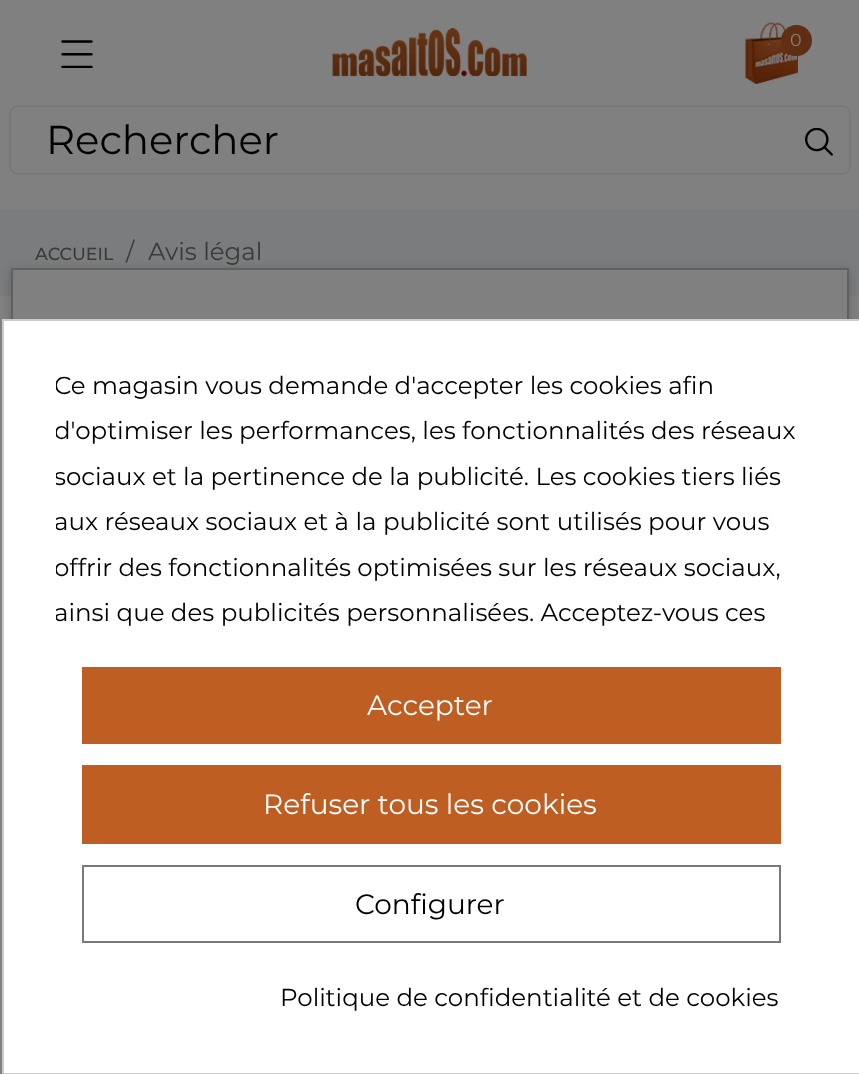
<svg xmlns="http://www.w3.org/2000/svg" width="859" height="1074" viewBox="0 0 859 1074">
  <defs>
    <clipPath id="clip1"><path d="M56 362h751v270H56z"/></clipPath>
  </defs>
  <rect width="100%" height="100%" fill="#808080"/>
  <image x="61" y="40" width="32" height="28" href="img/1.png"/>
  <image x="332" y="28" width="195" height="49" href="img/2.png"/>
  <image x="745" y="22" width="53" height="62" href="img/3.png"/>
  <circle cx="796.5" cy="40.5" r="15.5" fill="#602f13"/>
  <rect x="10" y="106" width="840" height="68" rx="8" fill="none" stroke="#787878" stroke-width="2"/>
  <image x="805" y="128" width="28" height="28" href="img/4.png"/>
  <path d="M0 210h859v86H0z" fill="#7b7c7d"/>
  <path d="M11 270h838v539H11z" fill="#0000001a" filter="blur(4.5px)"/>
  <path d="M11 270h838v539H11z" fill="#0000001a" filter="blur(4.5px)"/>
  <path d="M13 270h834v49H13z" fill="#808080"/>
  <path d="M12 269h836v537H12z" fill="none" stroke="#606060" stroke-width="2"/>
  <path d="M3 320h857v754H3z" fill="#fff" stroke="#ccc" stroke-width="2"/>
  <path d="M82 667h699v77H82z" fill="#bf5e23"/>
  <path d="M82 765h699v79H82z" fill="#bf5e23"/>
  <path d="M83 866h697v76H83z" fill="none" stroke="#7a7a7a" stroke-width="2"/>
  <text x="790" y="46" font-family="Montserrat" font-size="17.5" fill="#808080">0</text>
  <text x="46" y="154" font-family="Montserrat" font-size="40.25" fill="#000">Rechercher</text>
  <text x="35" y="260" font-family="Montserrat" font-size="17.5" font-weight="500" fill="#3a3a3a">ACCUEIL</text>
  <g font-family="Montserrat" font-size="24.5" fill="#3a3a3a">
    <text x="126" y="260">/</text>
    <text x="148" y="260">Avis légal</text>
  </g>
  <g clip-path="url(#clip1)">
    <g font-family="Montserrat" font-size="24.5" fill="#000">
      <text x="54" y="394">Ce magasin vous demande d'accepter les cookies afin</text>
      <text x="54" y="439">d'optimiser les performances, les fonctionnalités des réseaux</text>
      <text x="54" y="485">sociaux et la pertinence de la publicité. Les cookies tiers liés</text>
      <text x="54" y="530">aux réseaux sociaux et à la publicité sont utilisés pour vous</text>
      <text x="54" y="576">offrir des fonctionnalités optimisées sur les réseaux sociaux,</text>
      <text x="54" y="621">ainsi que des publicités personnalisées. Acceptez-vous ces</text>
    </g>
  </g>
  <g font-family="Montserrat" font-size="28" fill="#fff">
    <text x="367" y="715">Accepter</text>
    <text x="263" y="814">Refuser tous les cookies</text>
  </g>
  <text x="355" y="914" font-family="Montserrat" font-size="28" fill="#000">Configurer</text>
  <text x="280" y="1006" font-family="Montserrat" font-size="24.5" fill="#000">Politique de confidentialité et de cookies</text>
</svg>
